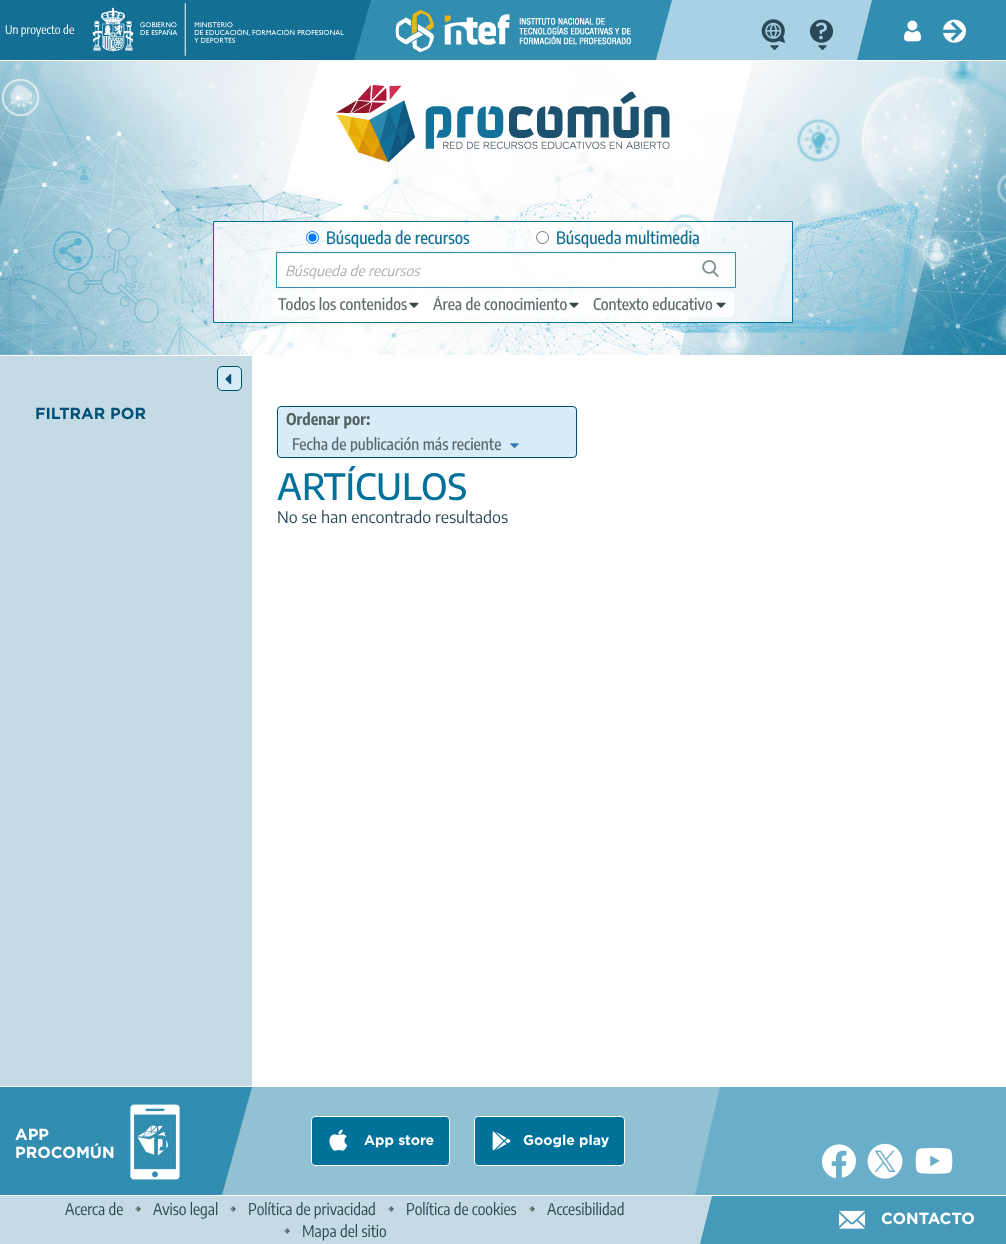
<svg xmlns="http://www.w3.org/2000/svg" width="1006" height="1244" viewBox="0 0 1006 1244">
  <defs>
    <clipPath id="clip1"><path d="M433 296h134v16H433z"/></clipPath>
    <clipPath id="clip2"><path d="M292 436h210v16H292z"/></clipPath>
  </defs>
  <rect width="100%" height="100%" fill="#fff"/>
  <path d="M0 0h351v60H0z" fill="#136f94"/>
  <image x="92" y="3" width="252" height="53" href="img/1.png"/>
  <path d="M354 0h318v60H354z" fill="#328eb0"/>
  <path d="M351 0H371L354 60H351Z" fill="#136f94"/>
  <image x="395" y="10" width="236" height="42" href="img/2.png"/>
  <path d="M676 60H656L672 0H676Z" fill="#a8d1e5"/>
  <path d="M676 0h196v60H676z" fill="#a8d1e5"/>
  <image x="761" y="19" width="25" height="24" href="img/3.png"/>
  <image x="770" y="45" width="9" height="6" href="img/4.png"/>
  <image x="809" y="19" width="25" height="24" href="img/5.png"/>
  <image x="818" y="45" width="9" height="6" href="img/4.png"/>
  <path d="M877 60H857L872 0H877Z" fill="#328eb0"/>
  <path d="M877 0h129v60H877z" fill="#328eb0"/>
  <image x="904" y="20" width="17" height="22" href="img/6.png"/>
  <image x="943" y="19" width="23" height="24" href="img/7.png"/>
  <image x="0" y="61" width="1006" height="294" href="img/8.png"/>
  <image x="336" y="85" width="334" height="78" href="img/9.png"/>
  <path d="M213.5 221.5h579v101H213.5z" fill="#ffffffb3" stroke="#007199"/>
  <circle cx="312.5" cy="237.5" r="6" fill="#fff" stroke="#0075ff"/>
  <circle cx="312.5" cy="237.5" r="4" fill="#0075ff"/>
  <circle cx="542.5" cy="237.5" r="6" fill="#fff" stroke="#767676"/>
  <path d="M276 252h460v36H276z" fill="#ffffffcc"/>
  <path d="M277 253h458v1H277z" fill="#0000000f"/>
  <path d="M276.5 252.5h459v35H276.5z" fill="none" stroke="#007199cc"/>
  <image x="702" y="260" width="17" height="17" href="img/10.png"/>
  <rect x="272" y="291" width="155" height="26" rx="4" fill="#ffffffcc"/>
  <image x="409" y="302" width="10" height="6" href="img/11.png"/>
  <rect x="427" y="291" width="160" height="26" rx="4" fill="#ffffffcc"/>
  <image x="569" y="302" width="10" height="6" href="img/12.png"/>
  <rect x="587" y="291" width="147" height="26" rx="4" fill="#ffffffcc"/>
  <image x="716" y="302" width="10" height="6" href="img/13.png"/>
  <path d="M0 356h252v730H0z" fill="#c4dbe5"/>
  <rect x="217.5" y="366.5" width="24" height="24" rx="4.5" fill="#d8ecf8" stroke="#005178"/>
  <image x="225" y="374" width="7" height="11" href="img/14.png"/>
  <rect x="277.5" y="406.5" width="299" height="51" rx="3.5" fill="#d8ecf8" stroke="#005178"/>
  <image x="510" y="443" width="9" height="6" href="img/15.png"/>
  <path d="M222 1087h498v108H222z" fill="#91c1d3"/>
  <path d="M-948 1087H252L222 1195H-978Z" fill="#328eb0"/>
  <path d="M720 1087H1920L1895 1195H695Z" fill="#6aaec9"/>
  <image x="821" y="1144" width="35" height="35" href="img/16.png"/>
  <image x="867" y="1143" width="36" height="36" href="img/17.png"/>
  <image x="915" y="1147" width="38" height="27" href="img/18.png"/>
  <image x="130" y="1104" width="50" height="76" href="img/19.png"/>
  <rect x="311.5" y="1116.5" width="138" height="49" rx="3.5" fill="#007199" stroke="#fff"/>
  <image x="329" y="1129" width="19" height="22" href="img/20.png"/>
  <rect x="474.5" y="1116.5" width="150" height="49" rx="3.5" fill="#007199" stroke="#fff"/>
  <image x="492" y="1131" width="19" height="20" href="img/21.png"/>
  <path d="M0 1196h694v48H0z" fill="#c4dbe5"/>
  <path d="M138 1206V1212L135 1209Z" fill="#7d8f8f"/>
  <path d="M138 1212V1206L141 1209Z" fill="#546262"/>
  <path d="M233 1206V1212L230 1209Z" fill="#7d8f8f"/>
  <path d="M233 1212V1206L236 1209Z" fill="#546262"/>
  <path d="M391 1206V1212L388 1209Z" fill="#7d8f8f"/>
  <path d="M391 1212V1206L394 1209Z" fill="#546262"/>
  <path d="M532 1206V1212L529 1209Z" fill="#7d8f8f"/>
  <path d="M532 1212V1206L535 1209Z" fill="#546262"/>
  <path d="M287 1228V1234L284 1231Z" fill="#7d8f8f"/>
  <path d="M287 1234V1228L290 1231Z" fill="#546262"/>
  <path d="M700 1196h306v48H700z" fill="#4799b9"/>
  <path d="M694 1196H712L700 1244H694Z" fill="#c4dbe5"/>
  <image x="839" y="1210" width="26" height="19" href="img/22.png"/>
  <text x="5" y="34" font-family="Encode Sans Condensed" font-size="12" fill="#fff">Un proyecto de</text>
  <g font-family="Encode Sans Condensed" font-size="17" font-weight="500" fill="#136f94">
    <text x="326" y="244">Búsqueda de recursos</text>
    <text x="556" y="244">Búsqueda multimedia</text>
  </g>
  <text x="285" y="276" font-family="Encode Sans" font-size="14" font-style="italic" fill="#adadad">Búsqueda de recursos</text>
  <text x="278" y="310" font-family="Encode Sans Condensed" font-size="16" font-weight="500" fill="#616c6d">Todos los contenidos</text>
  <g clip-path="url(#clip1)">
    <text x="433" y="310" font-family="Encode Sans Condensed" font-size="16" font-weight="500" fill="#616c6d">Área de conocimiento</text>
  </g>
  <text x="593" y="310" font-family="Encode Sans Condensed" font-size="16" font-weight="500" fill="#616c6d">Contexto educativo</text>
  <text x="35" y="419" font-family="Gotham" font-size="16" font-weight="bold" fill="#005178">FILTRAR POR</text>
  <text x="286" y="425" font-family="Encode Sans Condensed" font-size="16" font-weight="bold" fill="#546262">Ordenar por:</text>
  <g clip-path="url(#clip2)">
    <text x="292" y="450" font-family="Encode Sans Condensed" font-size="16" font-weight="500" fill="#5a686c">Fecha de publicación más reciente</text>
  </g>
  <text x="277" y="500" font-family="Encode Sans" font-size="36" font-weight="500" fill="#007199">ARTÍCULOS</text>
  <text x="277" y="523" font-family="Encode Sans" font-size="16" fill="#294956">No se han encontrado resultados</text>
  <g font-family="Gotham" font-size="16" font-weight="bold" fill="#fff">
    <text x="15" y="1140">APP</text>
    <text x="15" y="1158">PROCOMÚN</text>
  </g>
  <g font-family="Gotham" font-size="14" font-weight="bold" fill="#fff">
    <text x="364" y="1145">App store</text>
    <text x="523" y="1145">Google play</text>
  </g>
  <g font-family="Encode Sans Condensed" font-size="16" fill="#294956">
    <text x="65" y="1215">Acerca de</text>
    <text x="153" y="1215">Aviso legal</text>
    <text x="248" y="1215">Política de privacidad</text>
    <text x="406" y="1215">Política de cookies</text>
    <text x="547" y="1215">Accesibilidad</text>
    <text x="302" y="1237">Mapa del sitio</text>
  </g>
  <text x="881" y="1224" font-family="Gotham" font-size="16" font-weight="bold" fill="#fff">CONTACTO</text>
</svg>
